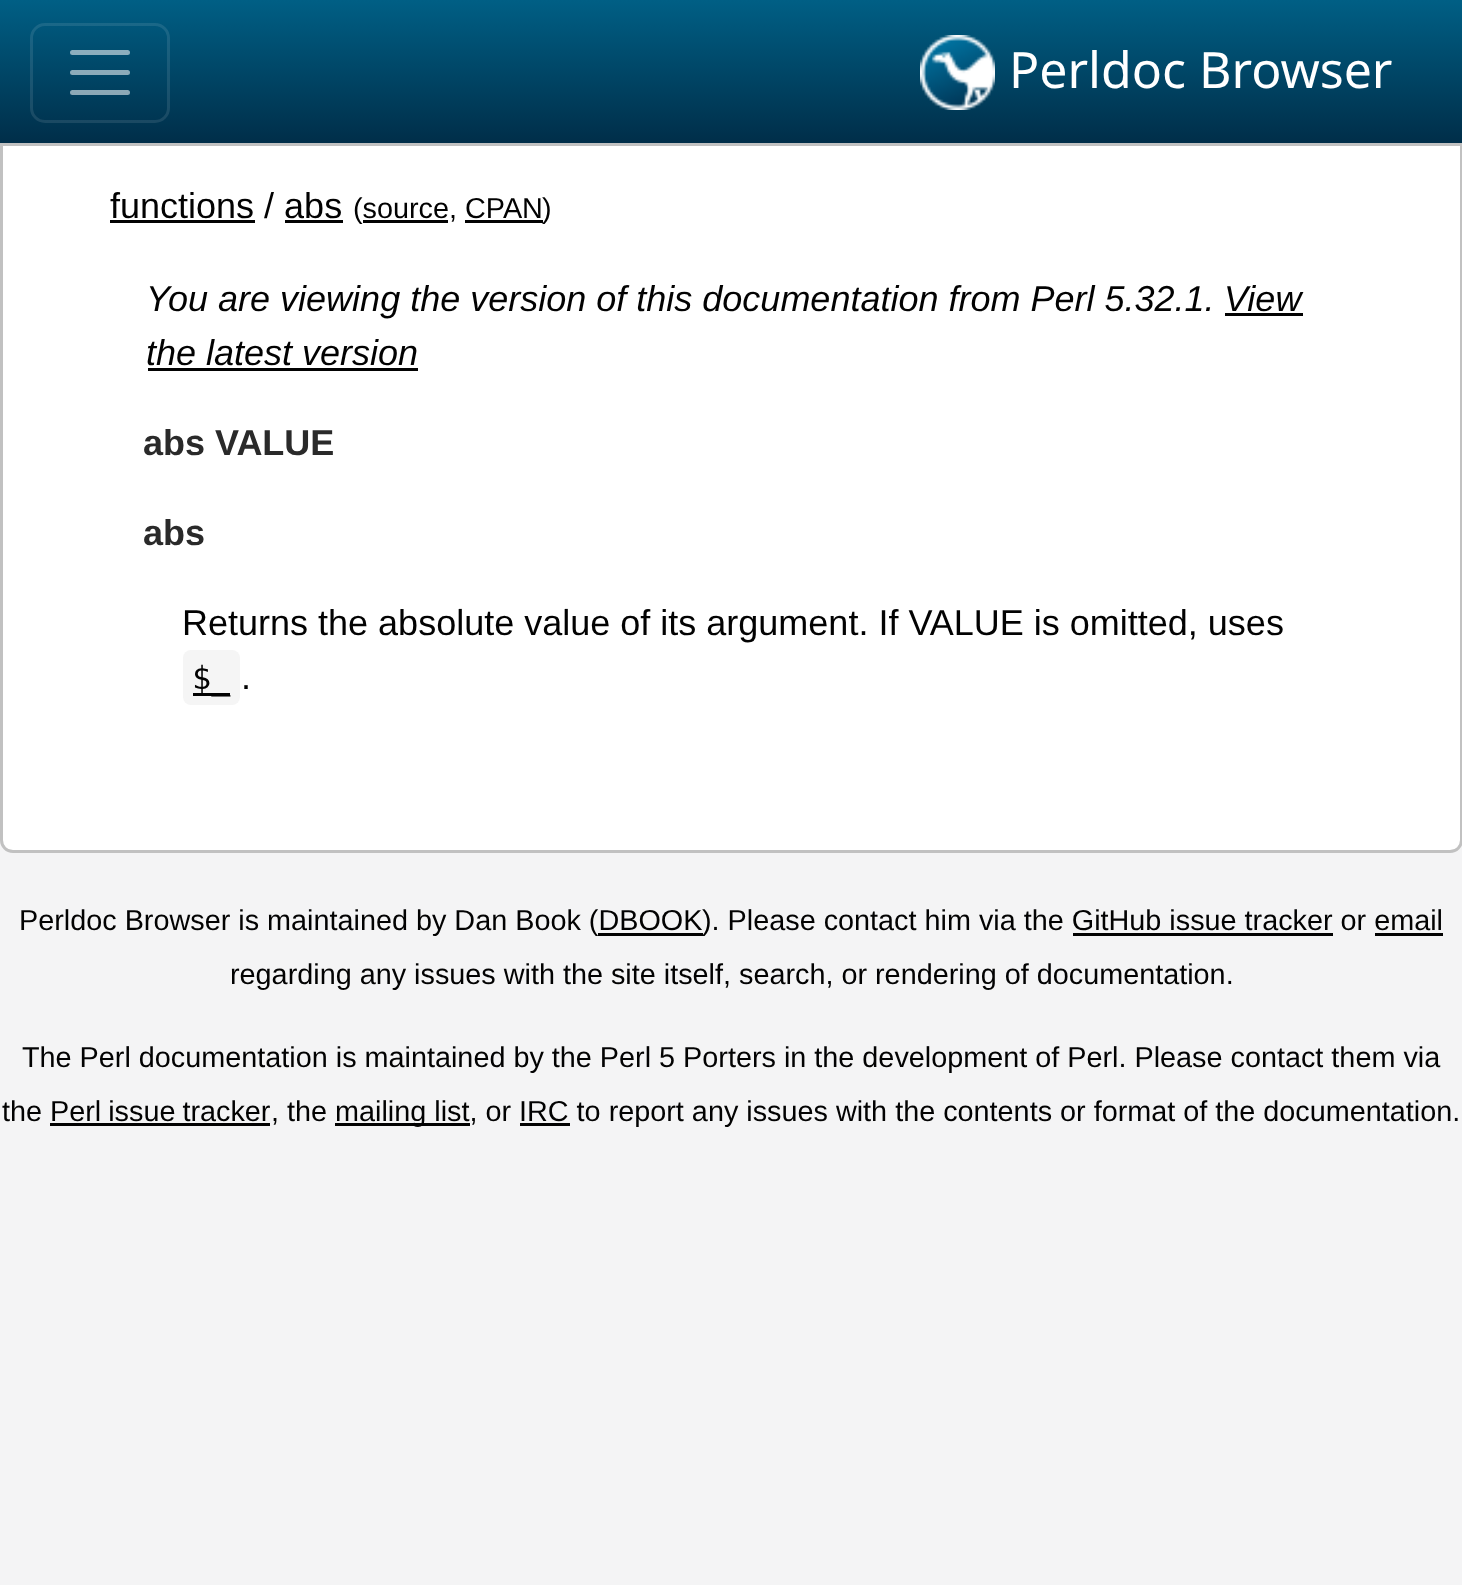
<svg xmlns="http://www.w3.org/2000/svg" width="1462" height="1585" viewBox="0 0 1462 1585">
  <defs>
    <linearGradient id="g1" gradientUnits="userSpaceOnUse" x1="731" y1="0" x2="731" y2="143"><stop offset="0" stop-color="#005f85"/><stop offset="1" stop-color="#002e49"/></linearGradient>
  </defs>
  <rect width="100%" height="100%" fill="#f4f4f5"/>
  <path d="M0 0h1462v143H0z" fill="url(#g1)"/>
  <rect x="31.5" y="24.5" width="137" height="97" rx="13.5" fill="none" stroke="#ffffff1a" stroke-width="3"/>
  <path d="M72.5 52.5H127.5M72.5 72.5H127.5M72.5 92.5H127.5" fill="none" stroke="#ffffff8c" stroke-width="5" stroke-linecap="round"/>
  <image x="920" y="35" width="75" height="75" href="img/1.png"/>
  <path d="M1.5 144.5H1461.5V840C1461.5 846.5 1456.5 851.5 1450 851.5H13C6.5 851.5 1.5 846.5 1.5 840Z" fill="#fff" stroke="#c1c1c1" stroke-width="3"/>
  <path d="M110 220h145v3H110z" fill="#020202"/>
  <path d="M363 220h85v3H363z" fill="#020202"/>
  <path d="M465 220h78v3H465z" fill="#020202"/>
  <path d="M285 220h58v3H285z" fill="#020202"/>
  <path d="M1225 313h78v3H1225z" fill="#020202"/>
  <path d="M148 368h270v3H148z" fill="#020202"/>
  <rect x="183" y="650" width="57" height="55" rx="8" fill="#f5f5f5"/>
  <path d="M193 693h37v3H193z" fill="#020202"/>
  <path d="M598 933h105v3H598z" fill="#020202"/>
  <path d="M1073 933h260v3H1073z" fill="#020202"/>
  <path d="M1375 933h68v3H1375z" fill="#020202"/>
  <path d="M50 1123h220v3H50z" fill="#020202"/>
  <path d="M335 1123h135v3H335z" fill="#020202"/>
  <path d="M520 1123h50v3H520z" fill="#020202"/>
  <text x="1009" y="88" font-family="Noto Sans" font-size="50" fill="#fff">Perldoc Browser</text>
  <text x="110" y="218" font-family="Liberation Sans" font-size="36" fill="#020202">functions / abs</text>
  <g font-family="Liberation Sans" font-size="28.8" fill="#020202">
    <text x="353" y="218">(source, CPAN</text>
    <text x="542" y="218">)</text>
  </g>
  <g font-family="Liberation Sans" font-size="36" font-style="italic" fill="#020202">
    <text x="146" y="311">You are viewing the version of this documentation from Perl 5.32.1.</text>
    <text x="1224" y="311">View</text>
    <text x="146" y="365">the latest version</text>
  </g>
  <g font-family="Liberation Sans" font-size="36" font-weight="bold" fill="#2a2a2a">
    <text x="143" y="455">abs VALUE</text>
    <text x="143" y="545">abs</text>
  </g>
  <text x="182" y="635" font-family="Liberation Sans" font-size="36" fill="#020202">Returns the absolute value of its argument. If VALUE is omitted, uses</text>
  <text x="192" y="689" font-family="DejaVu Sans Mono" font-size="32" fill="#020202">$_</text>
  <text x="241" y="689" font-family="Liberation Sans" font-size="36" fill="#020202">.</text>
  <g font-family="Liberation Sans" font-size="28.8" fill="#020202">
    <text x="19" y="930">Perldoc Browser is maintained by Dan Book (DBOOK</text>
    <text x="702" y="930">). Please contact him via the GitHub issue tracker or email</text>
    <text x="230" y="984">regarding any issues with the site itself, search, or rendering of documentation.</text>
    <text x="22" y="1067">The Perl documentation is maintained by the Perl 5 Porters in the development of Perl. Please contact them via</text>
    <text x="2" y="1121">the</text>
    <text x="50" y="1121" word-spacing="-1">Perl issue tracker</text>
    <text x="271" y="1121">, the</text>
    <text x="335" y="1121">mailing list, or IRC to report any issues with the contents or format of the documentation.</text>
  </g>
</svg>
